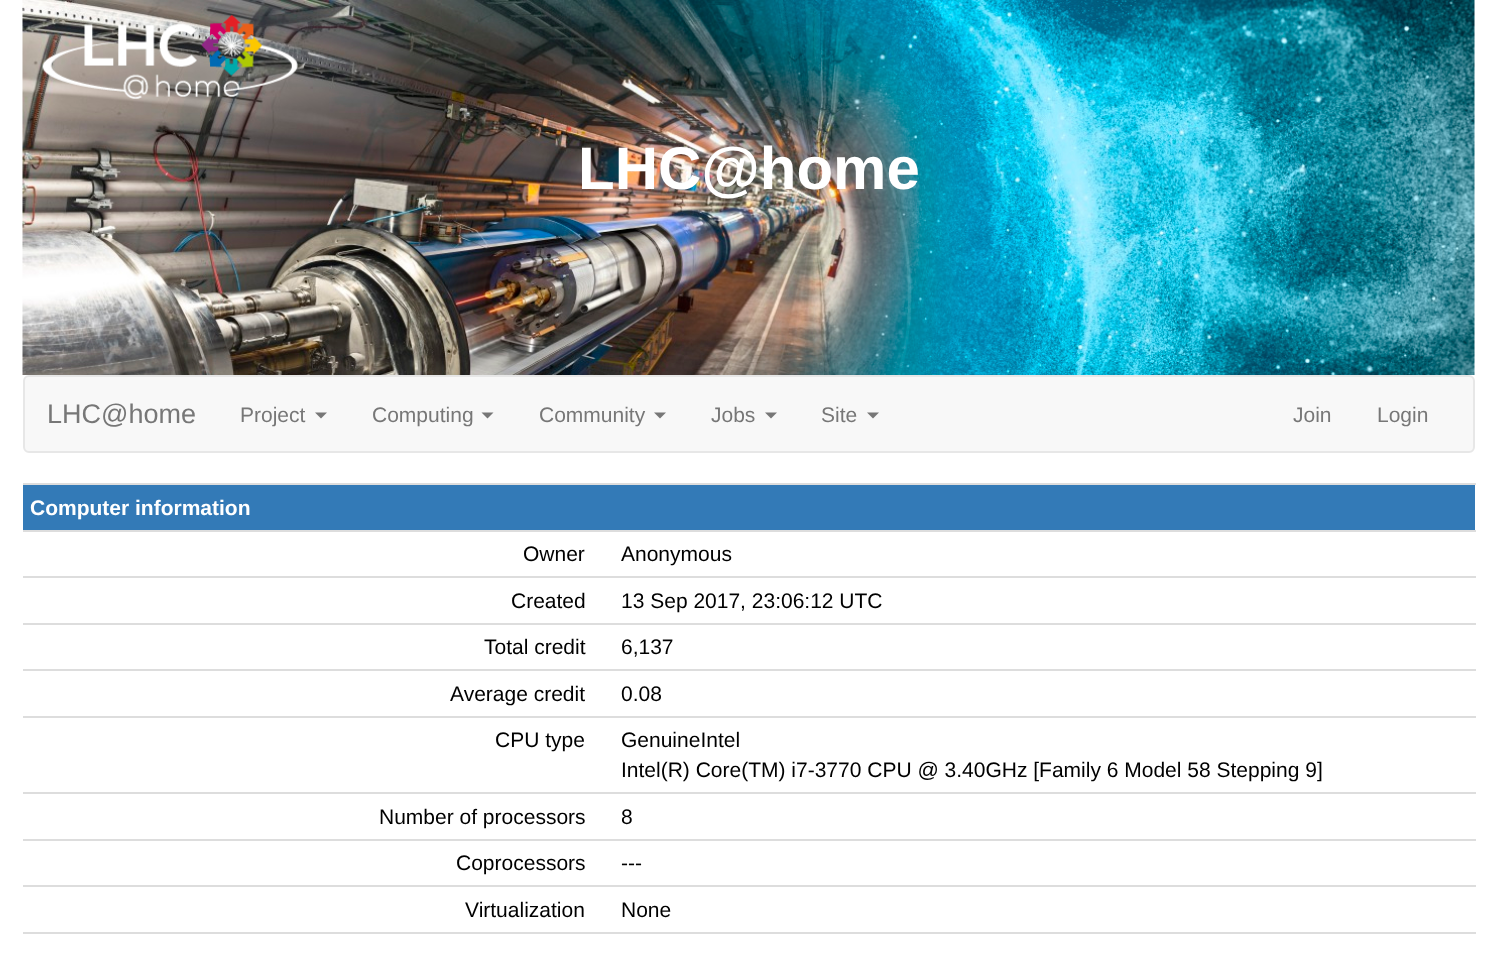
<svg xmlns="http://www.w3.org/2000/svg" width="1497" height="955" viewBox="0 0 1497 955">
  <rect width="100%" height="100%" fill="#fff"/>
  <image x="22" y="0" width="1453" height="375" href="img/1.png"/>
  <rect x="24" y="376" width="1450" height="76" rx="5" fill="#f8f8f8" stroke="#e7e7e7" stroke-width="2"/>
  <path d="M315 412.5H327L321 418.5Z" fill="#777"/>
  <path d="M481.5 412.5H493.5L487.5 418.5Z" fill="#777"/>
  <path d="M654 412.5H666L660 418.5Z" fill="#777"/>
  <path d="M765 412.5H777L771 418.5Z" fill="#777"/>
  <path d="M867 412.5H879L873 418.5Z" fill="#777"/>
  <path d="M23 485h1452v45H23z" fill="#337ab7"/>
  <path d="M23 483h1453v2H23z" fill="#ddd"/>
  <path d="M23 530h1453v2H23z" fill="#ddd"/>
  <path d="M23 576h1453v2H23z" fill="#ddd"/>
  <path d="M23 623h1453v2H23z" fill="#ddd"/>
  <path d="M23 669h1453v2H23z" fill="#ddd"/>
  <path d="M23 716h1453v2H23z" fill="#ddd"/>
  <path d="M23 792h1453v2H23z" fill="#ddd"/>
  <path d="M23 839h1453v2H23z" fill="#ddd"/>
  <path d="M23 885h1453v2H23z" fill="#ddd"/>
  <path d="M23 932h1453v2H23z" fill="#ddd"/>
  <text x="578" y="189" font-family="Liberation Sans" font-size="60" font-weight="bold" fill="#fff">LHC@home</text>
  <text x="47" y="423" font-family="Liberation Sans" font-size="27" fill="#777">LHC@home</text>
  <g font-family="Liberation Sans" font-size="21" fill="#777">
    <text x="240" y="422">Project</text>
    <text x="372" y="422">Computing</text>
    <text x="539" y="422">Community</text>
    <text x="711" y="422">Jobs</text>
    <text x="821" y="422">Site</text>
    <text x="1293" y="422">Join</text>
    <text x="1377" y="422">Login</text>
  </g>
  <text x="30" y="515" font-family="Liberation Sans" font-size="21" font-weight="bold" fill="#fff">Computer information</text>
  <g font-family="Liberation Sans" font-size="21" fill="#000">
    <text x="523" y="561">Owner</text>
    <text x="621" y="561">Anonymous</text>
    <text x="511" y="608">Created</text>
    <text x="621" y="608">13 Sep 2017, 23:06:12 UTC</text>
    <text x="484" y="654">Total credit</text>
    <text x="621" y="654">6,137</text>
    <text x="450" y="701">Average credit</text>
    <text x="621" y="701">0.08</text>
    <text x="495" y="747">CPU type</text>
    <text x="621" y="747">GenuineIntel</text>
    <text x="621" y="777">Intel(R) Core(TM) i7-3770 CPU @ 3.40GHz [Family 6 Model 58 Stepping 9]</text>
    <text x="379" y="824">Number of processors</text>
    <text x="621" y="824">8</text>
    <text x="456" y="870">Coprocessors</text>
    <text x="621" y="870">---</text>
    <text x="465" y="917">Virtualization</text>
    <text x="621" y="917">None</text>
  </g>
</svg>
